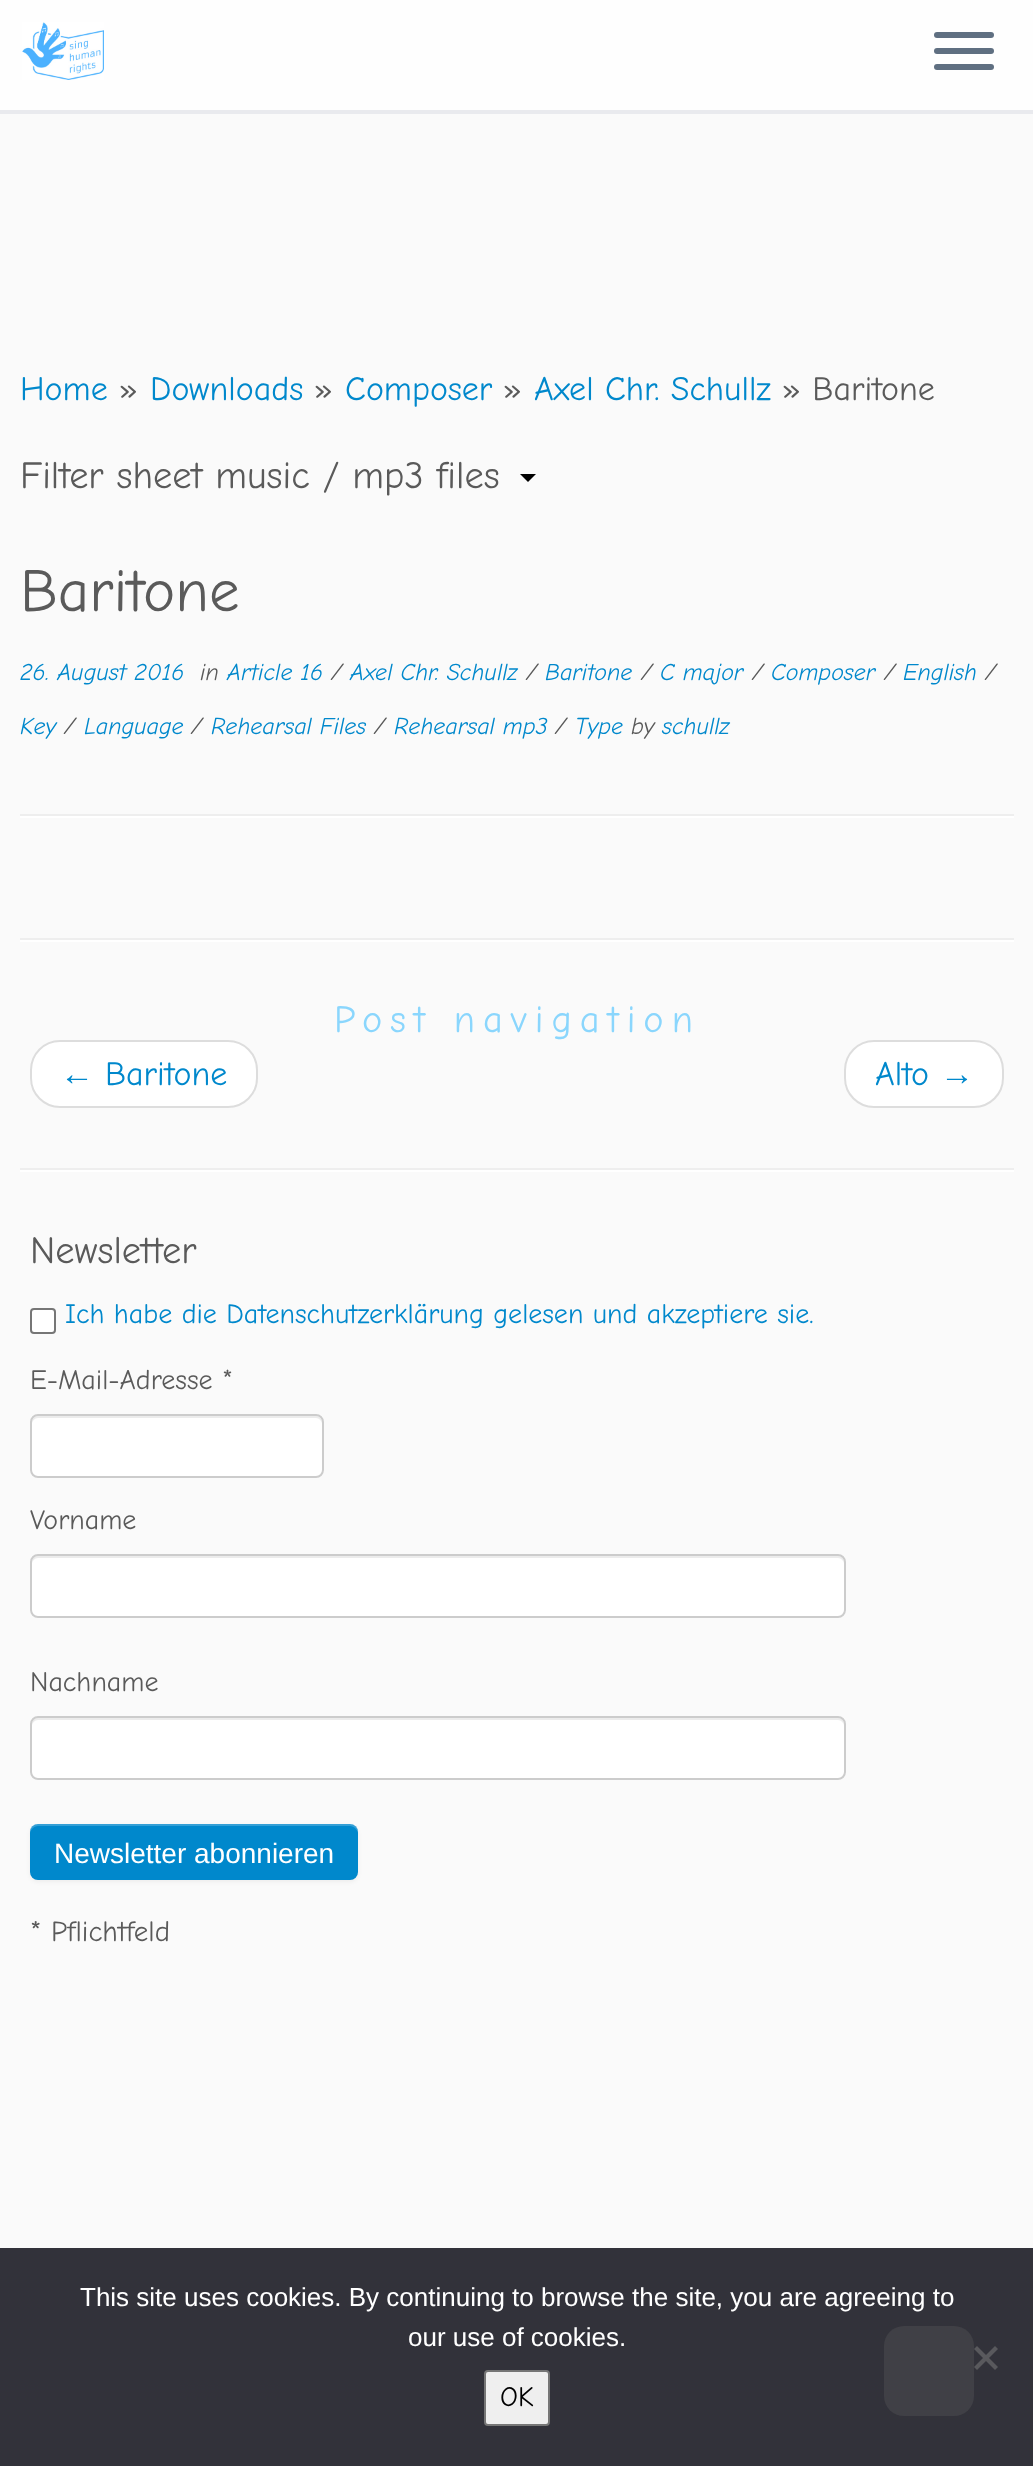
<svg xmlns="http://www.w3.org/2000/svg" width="1033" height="2466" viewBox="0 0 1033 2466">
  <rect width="100%" height="100%" fill="#fafafa"/>
  <path d="M0 0h1033v110H0z" fill="#fefefe"/>
  <path d="M0 110h1033v4H0z" fill="#e9eaee"/>
  <image x="22" y="22" width="82" height="58" href="img/1.png"/>
  <rect x="934" y="32" width="60" height="6" rx="3" fill="#5f6f81"/>
  <rect x="934" y="48" width="60" height="6" rx="3" fill="#5f6f81"/>
  <rect x="934" y="64" width="60" height="6" rx="3" fill="#5f6f81"/>
  <path d="M520 474H536L528 482Z" fill="#000"/>
  <path d="M20 814h994v2H20z" fill="#eee"/>
  <path d="M20 816h994v2H20z" fill="#fff"/>
  <path d="M20 938h994v2H20z" fill="#eee"/>
  <path d="M20 940h994v2H20z" fill="#fff"/>
  <rect x="31" y="1041" width="226" height="66" rx="29" fill="#fff" stroke="#ddd" stroke-width="2"/>
  <rect x="845" y="1041" width="158" height="66" rx="29" fill="#fff" stroke="#ddd" stroke-width="2"/>
  <path d="M20 1168h994v2H20z" fill="#eee"/>
  <path d="M20 1170h994v2H20z" fill="#fff"/>
  <rect x="31" y="1309" width="24" height="24" rx="3" fill="#fff" stroke="#767676" stroke-width="2"/>
  <rect x="30" y="1414" width="294" height="64" rx="8" fill="#fff"/>
  <path d="M38 1418H316C319 1418 322 1421 322 1424V1422C322 1419 319 1416 316 1416H38C35 1416 32 1419 32 1422V1424C32 1421 35 1418 38 1418Z" fill="#ececec"/>
  <rect x="31" y="1415" width="292" height="62" rx="7" fill="none" stroke="#ccc" stroke-width="2"/>
  <rect x="30" y="1554" width="816" height="64" rx="8" fill="#fff"/>
  <path d="M38 1558H838C841 1558 844 1561 844 1564C844 1560 843 1556 838 1556H38C33 1556 32 1560 32 1564C32 1561 35 1558 38 1558Z" fill="#ececec"/>
  <rect x="31" y="1555" width="814" height="62" rx="7" fill="none" stroke="#ccc" stroke-width="2"/>
  <rect x="30" y="1716" width="816" height="64" rx="8" fill="#fff"/>
  <path d="M38 1720H838C841 1720 844 1723 844 1726C844 1722 843 1718 838 1718H38C33 1718 32 1722 32 1726C32 1723 35 1720 38 1720Z" fill="#ececec"/>
  <rect x="31" y="1717" width="814" height="62" rx="7" fill="none" stroke="#ccc" stroke-width="2"/>
  <rect x="30" y="1826" width="328" height="56" rx="8" fill="#0000000d" filter="blur(2px)"/>
  <rect x="30" y="1824" width="328" height="56" rx="8" fill="#08c"/>
  <path d="M38 1826H350C354 1826 358 1830 358 1834C358 1830 357 1825 352 1824H36C31 1825 30 1830 30 1834C30 1830 34 1826 38 1826Z" fill="#ffffff33"/>
  <path d="M0 2248h1033v218H0z" fill="#32323a"/>
  <path d="M995 2346L998 2349L977 2370L974 2367Z" fill="#59595d"/>
  <path d="M974 2349L977 2346L998 2367L995 2370Z" fill="#59595d"/>
  <rect x="485" y="2371" width="64" height="54" rx="3" fill="#efefef" stroke="#767676" stroke-width="2"/>
  <rect x="884" y="2326" width="90" height="90" rx="20" fill="#404046"/>
  <text x="20" y="400" font-family="Comic Neue" font-size="34" fill="#08c">Home</text>
  <text x="119" y="400" font-family="Comic Neue" font-size="34" fill="#5a5a5a">»</text>
  <text x="150" y="400" font-family="Comic Neue" font-size="34" fill="#08c">Downloads</text>
  <text x="314" y="400" font-family="Comic Neue" font-size="34" fill="#5a5a5a">»</text>
  <text x="345" y="400" font-family="Comic Neue" font-size="34" fill="#08c">Composer</text>
  <text x="503" y="400" font-family="Comic Neue" font-size="34" fill="#5a5a5a">»</text>
  <text x="534" y="400" font-family="Comic Neue" font-size="34" fill="#08c">Axel Chr. Schullz</text>
  <text x="782" y="400" font-family="Comic Neue" font-size="34" fill="#5a5a5a">» Baritone</text>
  <text x="20" y="488" font-family="Comic Neue" font-size="38.4" fill="#5a5a5a">Filter sheet music / mp3 files</text>
  <text x="20" y="611" font-family="Comic Neue" font-size="61" fill="#5a5a5a">Baritone</text>
  <text x="20" y="680" font-family="Comic Neue" font-size="24" font-style="italic" fill="#08c">26. August 2016</text>
  <text x="200" y="680" font-family="Comic Neue" font-size="24" font-style="italic" fill="#5a5a5a">in</text>
  <text x="227" y="680" font-family="Comic Neue" font-size="24" font-style="italic" fill="#08c">Article 16</text>
  <text x="331" y="680" font-family="Comic Neue" font-size="24" font-style="italic" fill="#5a5a5a">/</text>
  <text x="350" y="680" font-family="Comic Neue" font-size="24" font-style="italic" fill="#08c">Axel Chr. Schullz</text>
  <text x="526" y="680" font-family="Comic Neue" font-size="24" font-style="italic" fill="#5a5a5a">/</text>
  <text x="545" y="680" font-family="Comic Neue" font-size="24" font-style="italic" fill="#08c">Baritone</text>
  <text x="641" y="680" font-family="Comic Neue" font-size="24" font-style="italic" fill="#5a5a5a">/</text>
  <text x="660" y="680" font-family="Comic Neue" font-size="24" font-style="italic" fill="#08c">C major</text>
  <text x="752" y="680" font-family="Comic Neue" font-size="24" font-style="italic" fill="#5a5a5a">/</text>
  <text x="771" y="680" font-family="Comic Neue" font-size="24" font-style="italic" fill="#08c">Composer</text>
  <text x="884" y="680" font-family="Comic Neue" font-size="24" font-style="italic" fill="#5a5a5a">/</text>
  <text x="903" y="680" font-family="Comic Neue" font-size="24" font-style="italic" fill="#08c">English</text>
  <text x="985" y="680" font-family="Comic Neue" font-size="24" font-style="italic" fill="#5a5a5a">/</text>
  <text x="20" y="734" font-family="Comic Neue" font-size="24" font-style="italic" fill="#08c">Key</text>
  <text x="64" y="734" font-family="Comic Neue" font-size="24" font-style="italic" fill="#5a5a5a">/</text>
  <text x="84" y="734" font-family="Comic Neue" font-size="24" font-style="italic" fill="#08c">Language</text>
  <text x="191" y="734" font-family="Comic Neue" font-size="24" font-style="italic" fill="#5a5a5a">/</text>
  <text x="211" y="734" font-family="Comic Neue" font-size="24" font-style="italic" fill="#08c">Rehearsal Files</text>
  <text x="374" y="734" font-family="Comic Neue" font-size="24" font-style="italic" fill="#5a5a5a">/</text>
  <text x="394" y="734" font-family="Comic Neue" font-size="24" font-style="italic" fill="#08c">Rehearsal mp3</text>
  <text x="555" y="734" font-family="Comic Neue" font-size="24" font-style="italic" fill="#5a5a5a">/</text>
  <text x="575" y="734" font-family="Comic Neue" font-size="24" font-style="italic" fill="#08c">Type</text>
  <text x="631" y="734" font-family="Comic Neue" font-size="24" font-style="italic" fill="#5a5a5a">by</text>
  <text x="662" y="734" font-family="Comic Neue" font-size="24" font-style="italic" fill="#08c">schullz</text>
  <text x="334" y="1032" font-family="Comic Neue" font-size="38.4" letter-spacing="8" fill="#8ad6fd">Post navigation</text>
  <text x="60" y="1085" font-family="Liberation Serif" font-size="34" fill="#08c">←</text>
  <g font-family="Comic Neue" font-size="34" fill="#08c">
    <text x="105" y="1085">Baritone</text>
    <text x="875" y="1085">Alto</text>
  </g>
  <text x="940" y="1085" font-family="Liberation Serif" font-size="34" fill="#08c">→</text>
  <text x="30" y="1263" font-family="Comic Neue" font-size="38.4" fill="#5a5a5a">Newsletter</text>
  <text x="65" y="1323" font-family="Comic Neue" font-size="28" fill="#08c">Ich habe die Datenschutzerklärung gelesen und akzeptiere sie.</text>
  <g font-family="Comic Neue" font-size="28" fill="#5a5a5a">
    <text x="30" y="1389">E-Mail-Adresse *</text>
    <text x="30" y="1529">Vorname</text>
    <text x="30" y="1691">Nachname</text>
  </g>
  <text x="54" y="1863" font-family="Liberation Sans" font-size="28" fill="#fff">Newsletter abonnieren</text>
  <text x="30" y="1941" font-family="Comic Neue" font-size="29" fill="#5a5a5a">* Pflichtfeld</text>
  <g font-family="Liberation Sans" font-size="26" fill="#fff">
    <text x="80" y="2306">This site uses cookies. By continuing to browse the site, you are agreeing to</text>
    <text x="408" y="2346">our use of cookies.</text>
  </g>
  <text x="500" y="2406" font-family="Comic Neue" font-size="28" fill="#000">OK</text>
</svg>
